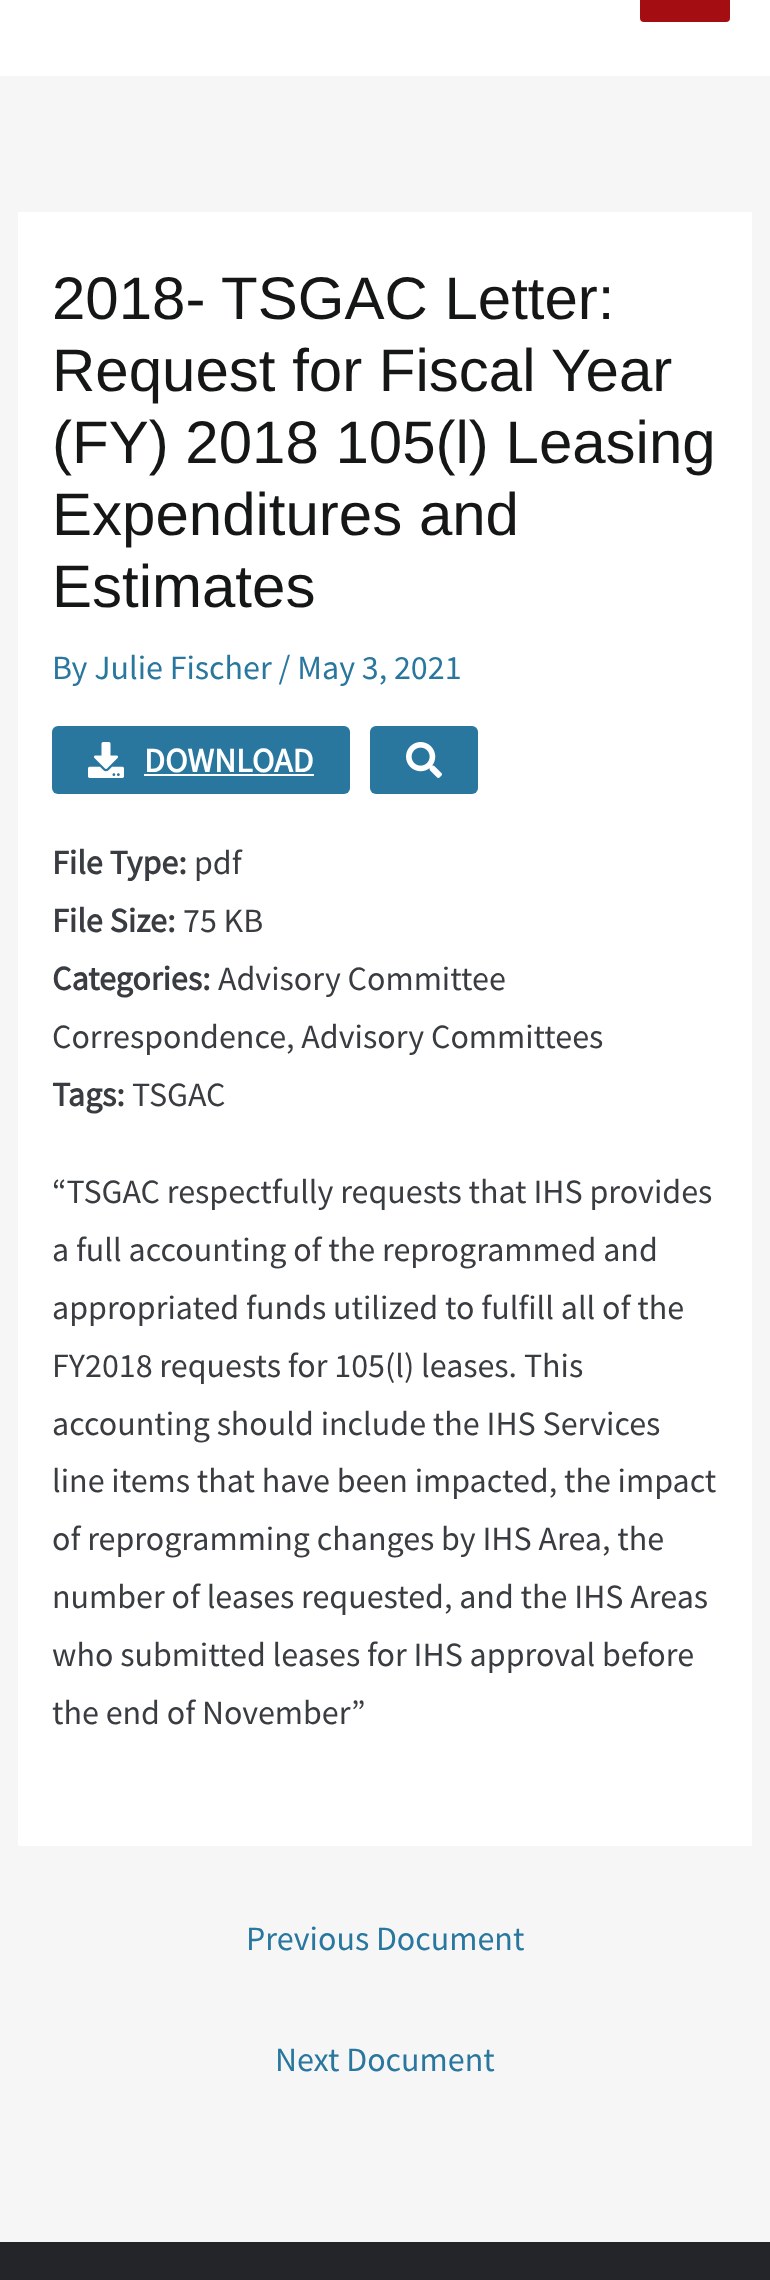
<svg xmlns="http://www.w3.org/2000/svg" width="770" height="2280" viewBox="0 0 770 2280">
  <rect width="100%" height="100%" fill="#f6f6f6"/>
  <path d="M0 0h770v76H0z" fill="#fff"/>
  <rect x="640" y="-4" width="90" height="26" rx="4" fill="#a40d12"/>
  <path d="M18 212h734v1634H18z" fill="#fff"/>
  <rect x="52" y="726" width="298" height="68" rx="6" fill="#29779e"/>
  <image x="88" y="742" width="36" height="36" href="img/1.png"/>
  <path d="M144 774h170v2H144z" fill="#fff"/>
  <rect x="370" y="726" width="108" height="68" rx="6" fill="#29779e"/>
  <image x="406" y="742" width="36" height="36" href="img/2.png"/>
  <path d="M0 2242h770v38H0z" fill="#232529"/>
  <g font-family="Liberation Sans" font-size="60" fill="#151616">
    <text x="52" y="319">2018- TSGAC Letter:</text>
    <text x="52" y="391">Request for Fiscal Year</text>
    <text x="52" y="463">(FY) 2018 105(l) Leasing</text>
    <text x="52" y="535">Expenditures and</text>
    <text x="52" y="607">Estimates</text>
  </g>
  <text x="52" y="679" font-family="Source Sans Pro" font-size="34" fill="#29779e">By Julie Fischer / May 3, 2021</text>
  <text x="144" y="772" font-family="Source Sans Pro" font-size="34" font-weight="bold" fill="#fff">DOWNLOAD</text>
  <text x="52" y="874" font-family="Source Sans Pro" font-size="34" font-weight="bold" fill="#393c40">File Type:</text>
  <text x="194" y="874" font-family="Source Sans Pro" font-size="34" fill="#393c40">pdf</text>
  <text x="52" y="932" font-family="Source Sans Pro" font-size="34" font-weight="bold" fill="#393c40">File Size:</text>
  <text x="183" y="932" font-family="Source Sans Pro" font-size="34" fill="#393c40">75 KB</text>
  <text x="52" y="990" font-family="Source Sans Pro" font-size="34" font-weight="bold" fill="#393c40">Categories:</text>
  <g font-family="Source Sans Pro" font-size="34" fill="#393c40">
    <text x="218" y="990">Advisory Committee</text>
    <text x="52" y="1048">Correspondence, Advisory Committees</text>
  </g>
  <text x="52" y="1106" font-family="Source Sans Pro" font-size="34" font-weight="bold" fill="#393c40">Tags:</text>
  <g font-family="Source Sans Pro" font-size="34" fill="#393c40">
    <text x="132" y="1106">TSGAC</text>
    <text x="52" y="1203">“TSGAC respectfully requests that IHS provides</text>
    <text x="52" y="1261">a full accounting of the reprogrammed and</text>
    <text x="52" y="1319">appropriated funds utilized to fulfill all of the</text>
    <text x="52" y="1377">FY2018 requests for 105(l) leases. This</text>
    <text x="52" y="1435">accounting should include the IHS Services</text>
    <text x="52" y="1492">line items that have been impacted, the impact</text>
    <text x="52" y="1550">of reprogramming changes by IHS Area, the</text>
    <text x="52" y="1608">number of leases requested, and the IHS Areas</text>
    <text x="52" y="1666">who submitted leases for IHS approval before</text>
    <text x="52" y="1724">the end of November”</text>
  </g>
  <g font-family="Source Sans Pro" font-size="34" fill="#29779e">
    <text x="246" y="1950">Previous Document</text>
    <text x="275" y="2071">Next Document</text>
  </g>
</svg>
